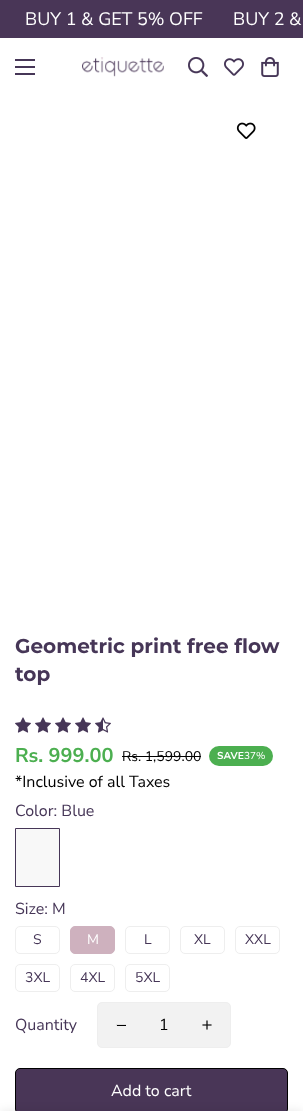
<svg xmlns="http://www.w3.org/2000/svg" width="303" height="1111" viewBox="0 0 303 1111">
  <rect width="100%" height="100%" fill="#fff"/>
  <path d="M0 0h303v38H0z" fill="#493657"/>
  <path d="M15 66h20v2H15z" fill="#463657"/>
  <path d="M15 59h20v2H15z" fill="#463657"/>
  <path d="M15 73h20v2H15z" fill="#463657"/>
  <image x="82" y="57" width="82" height="20" href="img/1.png"/>
  <image x="188" y="57" width="20" height="20" href="img/2.png"/>
  <image x="224" y="58" width="20" height="18" href="img/3.png"/>
  <image x="261" y="57" width="18" height="20" href="img/4.png"/>
  <image x="236" y="122" width="20" height="17" href="img/5.png"/>
  <image x="15" y="717" width="16" height="16" href="img/6.png"/>
  <image x="35" y="717" width="16" height="16" href="img/6.png"/>
  <image x="55" y="717" width="16" height="16" href="img/6.png"/>
  <image x="75" y="717" width="16" height="16" href="img/6.png"/>
  <image x="95" y="717" width="16" height="16" href="img/7.png"/>
  <path d="M122 756h79v1H122z" fill="#000"/>
  <rect x="209" y="746" width="64" height="20" rx="10" fill="#4caf50"/>
  <path d="M15.5 828.5h44v58H15.5z" fill="#f8f8f8" stroke="#463657"/>
  <rect x="15.5" y="926.5" width="44" height="27" rx="4.5" fill="none" stroke="#eee"/>
  <rect x="70.5" y="926.5" width="44" height="27" rx="4.5" fill="#ceb1be" stroke="#ceb1be"/>
  <rect x="125.5" y="926.5" width="44" height="27" rx="4.5" fill="none" stroke="#eee"/>
  <rect x="180.5" y="926.5" width="44" height="27" rx="4.5" fill="none" stroke="#eee"/>
  <rect x="235.5" y="926.5" width="44" height="27" rx="4.5" fill="none" stroke="#eee"/>
  <rect x="15.5" y="964.5" width="44" height="27" rx="4.5" fill="none" stroke="#eee"/>
  <rect x="70.5" y="964.5" width="44" height="27" rx="4.5" fill="none" stroke="#eee"/>
  <rect x="125.5" y="964.5" width="44" height="27" rx="4.5" fill="none" stroke="#eee"/>
  <rect x="97.5" y="1002.5" width="133" height="45" rx="4.5" fill="#f2f2f2" stroke="#eee"/>
  <image x="116" y="1024" width="10" height="2" href="img/8.png"/>
  <image x="202" y="1020" width="10" height="10" href="img/9.png"/>
  <rect x="15.5" y="1068.5" width="272" height="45" rx="4.5" fill="#493657" stroke="#000"/>
  <path d="M0 1111h303v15H0z" fill="#00000017" filter="blur(5px)"/>
  <g font-family="Nunito Sans" font-size="18" fill="#fff">
    <text x="25" y="25">BUY 1 &amp; GET 5% OFF</text>
    <text x="233" y="25">BUY 2 &amp;</text>
  </g>
  <g font-family="Montserrat" font-size="20" font-weight="bold" fill="#463657">
    <text x="15" y="653">Geometric print free flow</text>
    <text x="15" y="681">top</text>
  </g>
  <text x="15" y="762" font-family="Nunito Sans" font-size="20" font-weight="bold" fill="#4caf50">Rs. 999.00</text>
  <text x="122" y="761" font-family="Nunito Sans" font-size="14" fill="#000">Rs. 1,599.00</text>
  <text x="217" y="759" font-family="'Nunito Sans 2'" font-size="10" font-weight="bold" fill="#fff">SAVE</text>
  <text x="244" y="759" font-family="'Nunito Sans 2'" font-size="10" fill="#fff">37%</text>
  <text x="15" y="787" font-family="Nunito Sans" font-size="16" fill="#000">*Inclusive of all Taxes</text>
  <g font-family="Nunito Sans" font-size="16" fill="#463657">
    <text x="15" y="816">Color: Blue</text>
    <text x="15" y="914">Size: M</text>
  </g>
  <text x="33" y="944" font-family="Nunito Sans" font-size="14" fill="#463657">S</text>
  <text x="87" y="944" font-family="Nunito Sans" font-size="14" fill="#fff">M</text>
  <g font-family="Nunito Sans" font-size="14" fill="#463657">
    <text x="144" y="944">L</text>
    <text x="194" y="944">XL</text>
    <text x="245" y="944">XXL</text>
    <text x="25" y="982">3XL</text>
    <text x="80" y="982">4XL</text>
    <text x="135" y="982">5XL</text>
  </g>
  <text x="15" y="1030" font-family="Nunito Sans" font-size="16" fill="#463657">Quantity</text>
  <text x="159" y="1030" font-family="Nunito Sans" font-size="16" fill="#000">1</text>
  <text x="111" y="1096" font-family="Nunito Sans" font-size="16" fill="#fff">Add to cart</text>
</svg>
